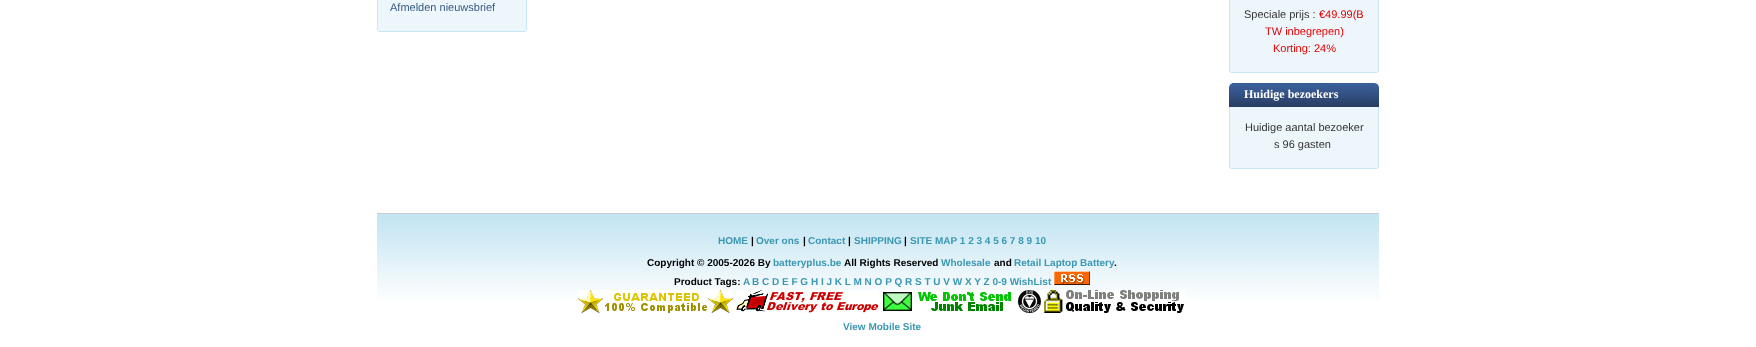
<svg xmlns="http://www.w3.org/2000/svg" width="1756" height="347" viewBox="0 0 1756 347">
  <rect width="100%" height="100%" fill="#fff"/>
  <path d="M378 0h148v28H378z" fill="#edf6fb"/>
  <path d="M526 0h1v28H526z" fill="#c8e7f5"/>
  <path d="M377 0h1v28H377z" fill="#c8e7f5"/>
  <image x="377" y="28" width="20" height="4" href="img/1.png"/>
  <image x="397" y="28" width="130" height="4" href="img/2.png"/>
  <path d="M1230 0h148v69H1230z" fill="#edf6fb"/>
  <path d="M1378 0h1v69H1378z" fill="#c8e7f5"/>
  <path d="M1229 0h1v69H1229z" fill="#c8e7f5"/>
  <image x="1229" y="69" width="20" height="4" href="img/1.png"/>
  <image x="1249" y="69" width="130" height="4" href="img/2.png"/>
  <path d="M1229 83h150v82H1229z" fill="#edf6fb"/>
  <image x="1229" y="83" width="3" height="24" href="img/3.png"/>
  <image x="1232" y="83" width="147" height="24" href="img/4.png"/>
  <path d="M1378 107h1v58H1378z" fill="#c8e7f5"/>
  <path d="M1229 107h1v58H1229z" fill="#c8e7f5"/>
  <image x="1229" y="165" width="20" height="4" href="img/1.png"/>
  <image x="1249" y="165" width="130" height="4" href="img/2.png"/>
  <image x="377" y="214" width="1002" height="86" href="img/5.png"/>
  <path d="M377 213h1002v1H377z" fill="#ccc"/>
  <image x="1054" y="271" width="36" height="14" href="img/6.png"/>
  <image x="578" y="290" width="155" height="23" href="img/7.png"/>
  <image x="736" y="290" width="143" height="23" href="img/8.png"/>
  <image x="881" y="290" width="132" height="21" href="img/9.png"/>
  <image x="1016" y="290" width="170" height="23" href="img/10.png"/>
  <text x="390" y="11" font-family="Liberation Sans" font-size="11" fill="#395a85">Afmelden nieuwsbrief</text>
  <text x="1244" y="18" font-family="Liberation Sans" font-size="11" fill="#353535">Speciale prijs :</text>
  <g font-family="Liberation Sans" font-size="11" fill="#e30000">
    <text x="1319" y="18">€49.99(B</text>
    <text x="1265" y="35">TW inbegrepen)</text>
    <text x="1273" y="52">Korting: 24%</text>
  </g>
  <text x="1244" y="98" font-family="Liberation Serif" font-size="12" font-weight="bold" fill="#fff">Huidige bezoekers</text>
  <g font-family="Liberation Sans" font-size="11" fill="#353535">
    <text x="1245" y="131">Huidige aantal bezoeker</text>
    <text x="1274" y="148">s 96 gasten</text>
  </g>
  <text x="718" y="244" font-family="Liberation Sans" font-size="10" font-weight="bold" fill="#3c97b3">HOME</text>
  <text x="751" y="244" font-family="Liberation Sans" font-size="10" font-weight="bold" fill="#000">|</text>
  <text x="756" y="244" font-family="Liberation Sans" font-size="10" font-weight="bold" fill="#3c97b3">Over ons</text>
  <text x="803" y="244" font-family="Liberation Sans" font-size="10" font-weight="bold" fill="#000">|</text>
  <text x="808" y="244" font-family="Liberation Sans" font-size="10" font-weight="bold" fill="#3c97b3">Contact</text>
  <text x="848" y="244" font-family="Liberation Sans" font-size="10" font-weight="bold" fill="#000">|</text>
  <text x="854" y="244" font-family="Liberation Sans" font-size="10" font-weight="bold" fill="#3c97b3">SHIPPING</text>
  <text x="904" y="244" font-family="Liberation Sans" font-size="10" font-weight="bold" fill="#000">|</text>
  <text x="910" y="244" font-family="Liberation Sans" font-size="10" font-weight="bold" fill="#3c97b3">SITE MAP 1 2 3 4 5 6 7 8 9 10</text>
  <text x="647" y="266" font-family="Liberation Sans" font-size="10" font-weight="bold" fill="#000">Copyright © 2005-2026 By</text>
  <text x="773" y="266" font-family="Liberation Sans" font-size="10" font-weight="bold" fill="#3c97b3">batteryplus.be</text>
  <text x="844" y="266" font-family="Liberation Sans" font-size="10" font-weight="bold" fill="#000">All Rights Reserved</text>
  <text x="941" y="266" font-family="Liberation Sans" font-size="10" font-weight="bold" fill="#3c97b3">Wholesale</text>
  <text x="994" y="266" font-family="Liberation Sans" font-size="10" font-weight="bold" fill="#000">and</text>
  <text x="1014" y="266" font-family="Liberation Sans" font-size="10" font-weight="bold" fill="#3c97b3">Retail Laptop Battery</text>
  <g font-family="Liberation Sans" font-size="10" font-weight="bold" fill="#000">
    <text x="1114" y="266">.</text>
    <text x="674" y="285">Product Tags:</text>
  </g>
  <g font-family="Liberation Sans" font-size="10" font-weight="bold" fill="#3c97b3">
    <text x="743" y="285">A</text>
    <text x="752" y="285">B C D E F G H I J K L M N O P Q R S T U V W X Y Z 0-9 WishList</text>
    <text x="843" y="330">View Mobile Site</text>
  </g>
</svg>
